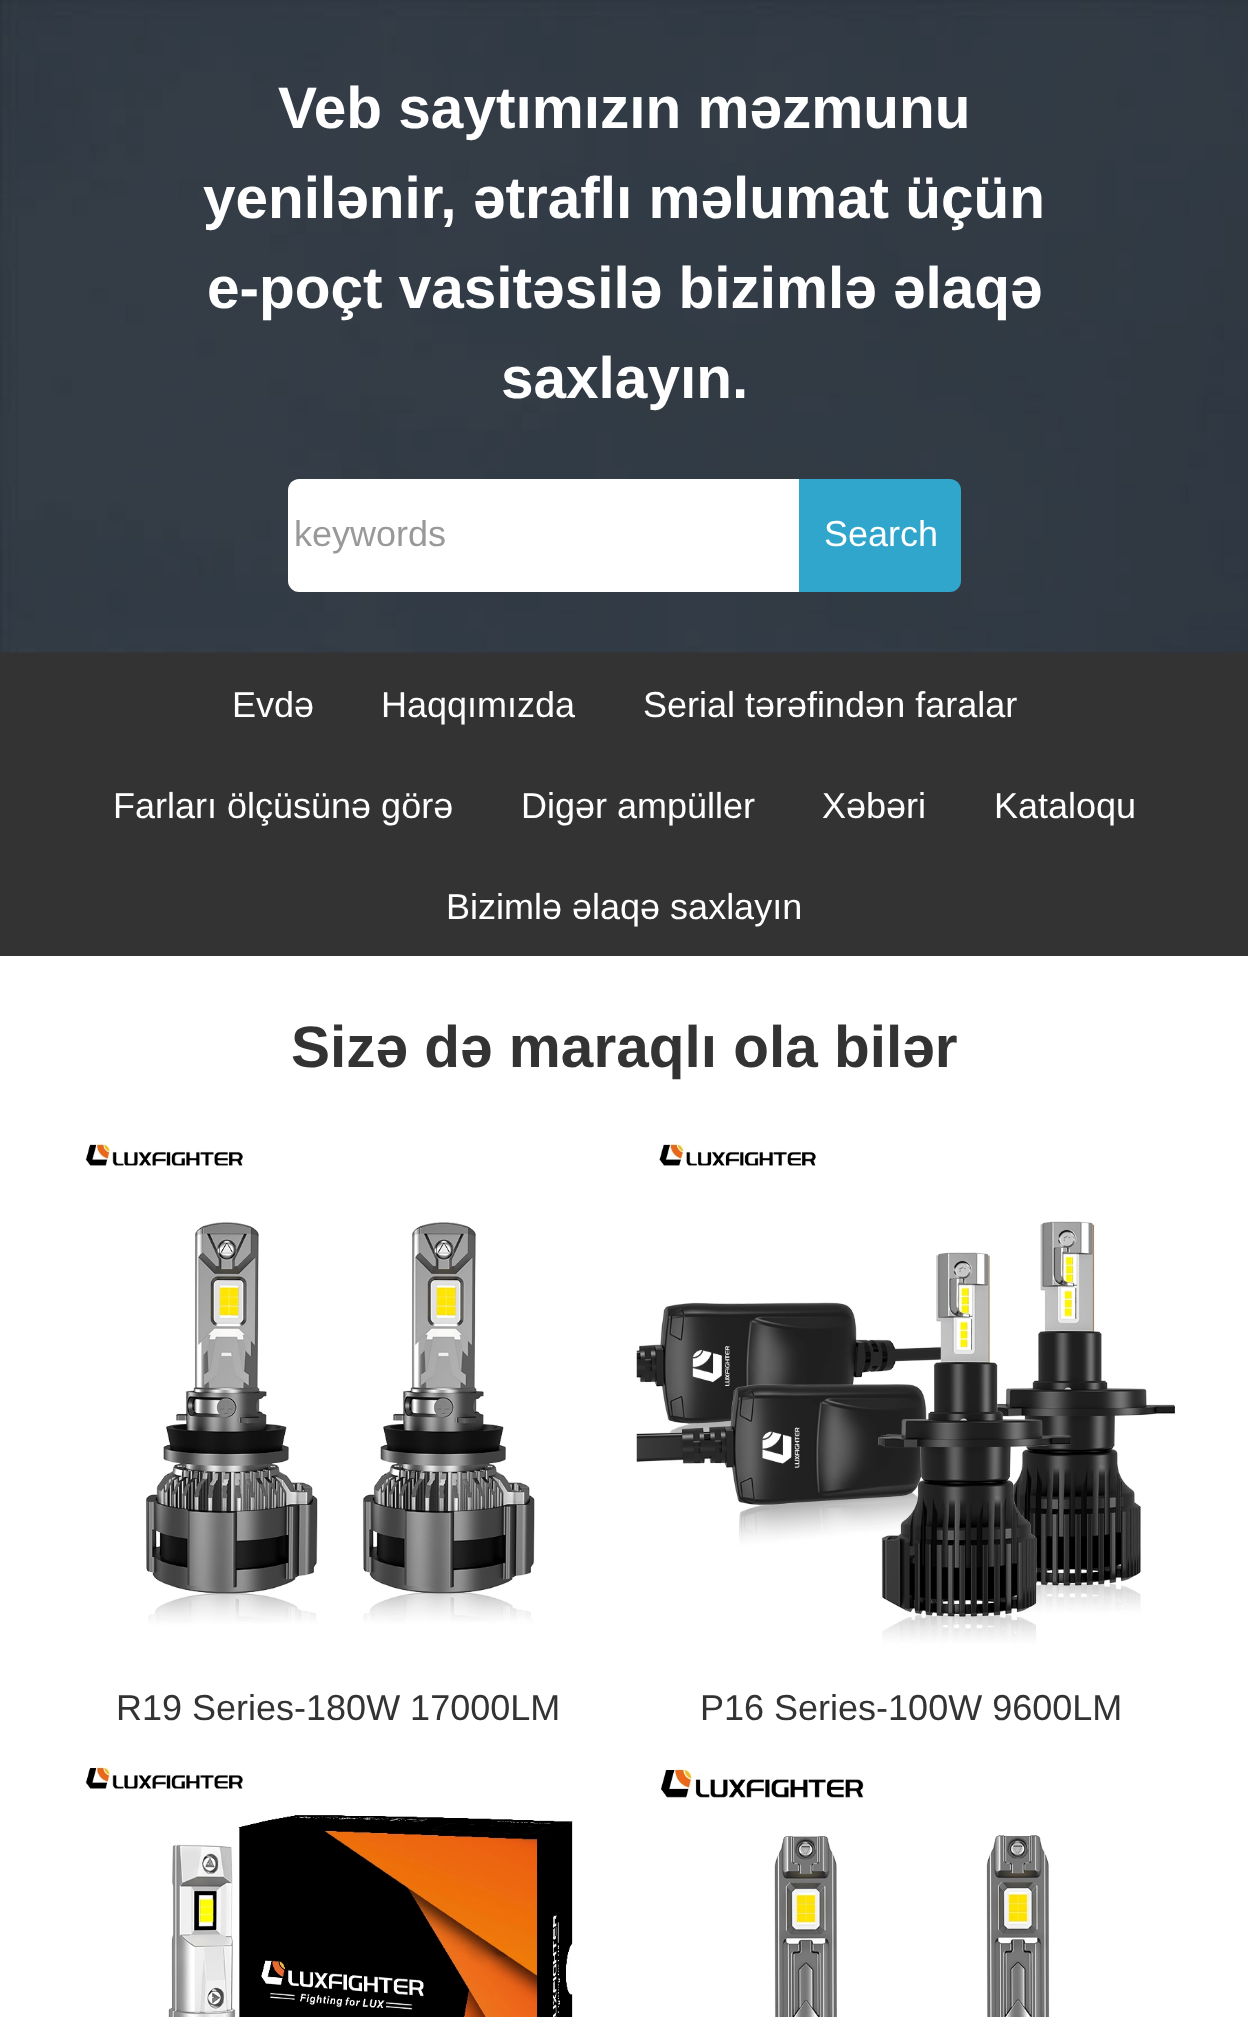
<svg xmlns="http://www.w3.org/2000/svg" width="1248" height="2017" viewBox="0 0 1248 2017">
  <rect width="100%" height="100%" fill="#fff"/>
  <path d="M0 652h1248v304H0z" fill="#333"/>
  <image x="0" y="0" width="1248" height="653" href="img/1.png"/>
  <path d="M299 479H799V592H299C293 592 288 587 288 581V490C288 484 293 479 299 479Z" fill="#fff"/>
  <path d="M799 479H950C956 479 961 484 961 490V581C961 587 956 592 950 592H799Z" fill="#31a6cc"/>
  <image x="63" y="1114" width="551" height="551" href="img/2.png"/>
  <image x="636" y="1114" width="550" height="551" href="img/3.png"/>
  <image x="63" y="1737" width="551" height="280" href="img/4.png"/>
  <image x="637" y="1737" width="549" height="280" href="img/5.png"/>
  <g font-family="Liberation Sans" font-size="58.5" font-weight="bold" fill="#fff">
    <text x="278" y="128">Veb saytımızın məzmunu</text>
    <text x="203" y="218">yenilənir, ətraflı məlumat üçün</text>
    <text x="207" y="308">e-poçt vasitəsilə bizimlə əlaqə</text>
    <text x="501" y="398">saxlayın.</text>
  </g>
  <text x="294" y="546" font-family="Liberation Sans" font-size="36" fill="#999">keywords</text>
  <g font-family="Liberation Sans" font-size="36" fill="#fff">
    <text x="824" y="546">Search</text>
    <text x="232" y="717">Evdə</text>
    <text x="381" y="717">Haqqımızda</text>
    <text x="643" y="717">Serial tərəfindən faralar</text>
    <text x="113" y="818">Farları ölçüsünə görə</text>
    <text x="521" y="818">Digər ampüller</text>
    <text x="822" y="818">Xəbəri</text>
    <text x="994" y="818">Kataloqu</text>
    <text x="446" y="919">Bizimlə əlaqə saxlayın</text>
  </g>
  <text x="291" y="1067" font-family="Liberation Sans" font-size="58.5" font-weight="bold" fill="#333">Sizə də maraqlı ola bilər</text>
  <g font-family="Liberation Sans" font-size="36" fill="#333">
    <text x="116" y="1720">R19 Series-180W 17000LM</text>
    <text x="700" y="1720">P16 Series-100W 9600LM</text>
  </g>
</svg>
